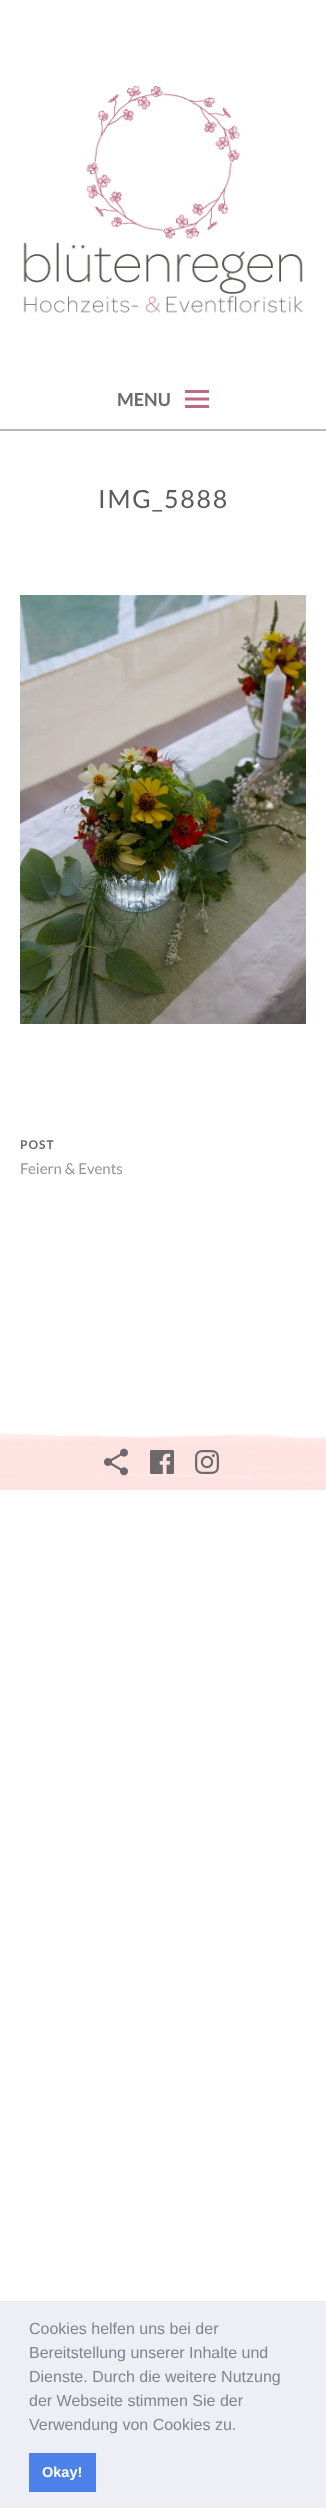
<svg xmlns="http://www.w3.org/2000/svg" width="326" height="2508" viewBox="0 0 326 2508">
  <rect width="100%" height="100%" fill="#fff"/>
  <image x="23" y="86" width="280" height="227" href="img/1.png"/>
  <path d="M0 429h326v2H0z" fill="#bab8b9"/>
  <image x="185" y="390" width="24" height="18" href="img/2.png"/>
  <image x="20" y="595" width="286" height="429" href="img/3.png"/>
  <image x="0" y="1433" width="326" height="57" href="img/4.png"/>
  <image x="104" y="1448" width="24" height="28" href="img/5.png"/>
  <image x="150" y="1450" width="24" height="24" href="img/6.png"/>
  <image x="195" y="1450" width="24" height="24" href="img/7.png"/>
  <path d="M0 2301h326v207H0z" fill="#edeff5"/>
  <path d="M29 2453h67v39H29z" fill="#4b81e8"/>
  <text x="117" y="406" font-family="Lato" font-size="18" font-weight="bold" fill="#6d686c">MENU</text>
  <text x="98" y="508" font-family="Lato" font-size="25" letter-spacing="1.75" fill="#5b5a5a">IMG_5888</text>
  <text x="20" y="1149" font-family="Lato" font-size="12" font-weight="bold" letter-spacing="1" fill="#6d686c">POST</text>
  <text x="20" y="1174" font-family="Lato" font-size="15" fill="#959595">Feiern &amp; Events</text>
  <g font-family="Liberation Sans" font-size="16" fill="#838391">
    <text x="29" y="2334">Cookies helfen uns bei der</text>
    <text x="29" y="2358">Bereitstellung unserer Inhalte und</text>
    <text x="29" y="2382">Dienste. Durch die weitere Nutzung</text>
    <text x="29" y="2406">der Webseite stimmen Sie der</text>
    <text x="29" y="2430">Verwendung von Cookies zu.</text>
  </g>
  <text x="42" y="2477" font-family="Liberation Sans" font-size="14.5" font-weight="bold" fill="#fff">Okay!</text>
</svg>
